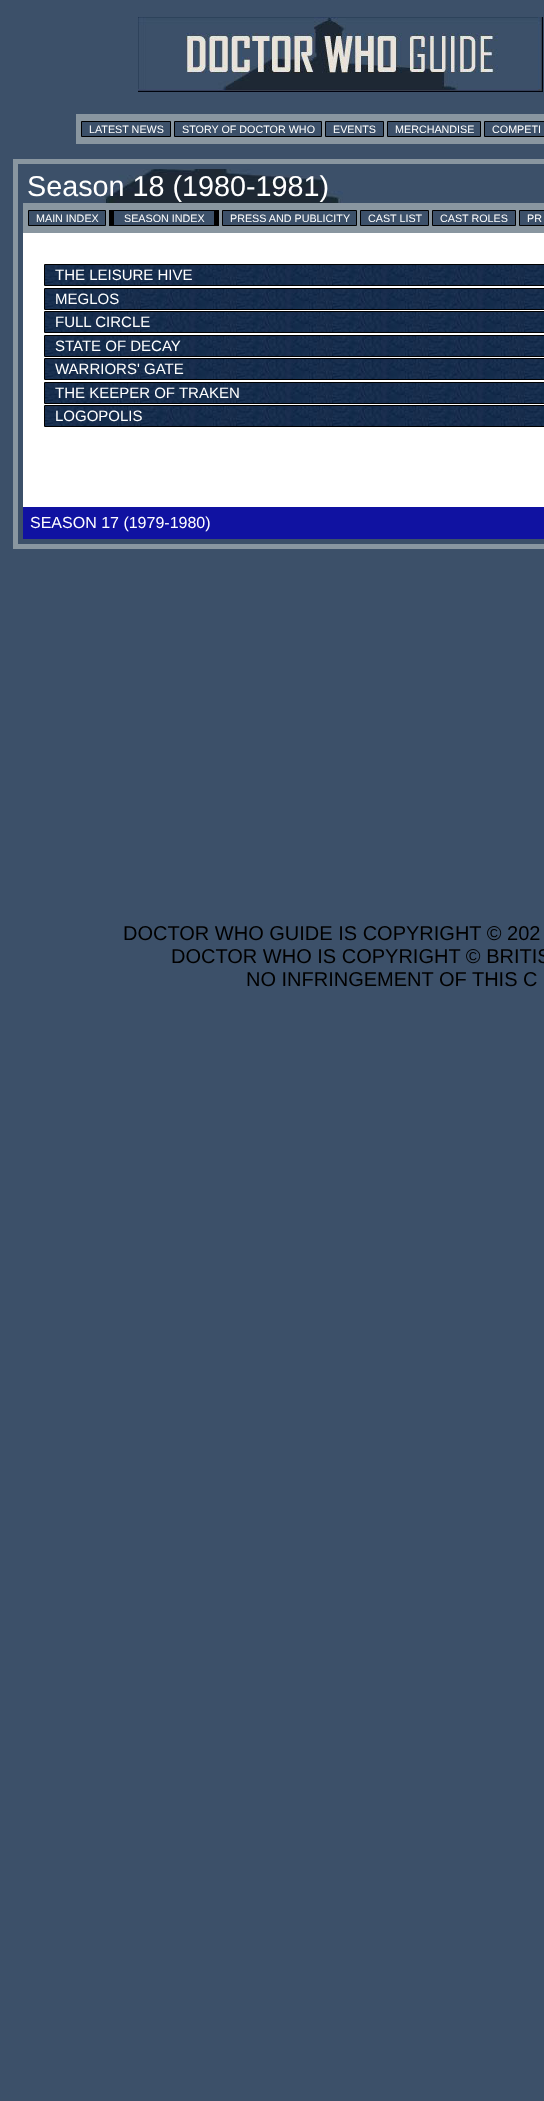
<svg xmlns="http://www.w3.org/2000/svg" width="544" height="2101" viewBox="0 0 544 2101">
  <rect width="100%" height="100%" fill="#3c5069"/>
  <image x="138" y="17" width="405" height="75" href="img/1.png"/>
  <path d="M76 114h468v30H76z" fill="#8996a0"/>
  <path d="M81.5 121.5h89v15H81.5z" fill="#3c5069" stroke="#000"/>
  <path d="M174.5 121.5h147v15H174.5z" fill="#3c5069" stroke="#000"/>
  <path d="M325.5 121.5h58v15H325.5z" fill="#3c5069" stroke="#000"/>
  <path d="M387.5 121.5h93v15H387.5z" fill="#3c5069" stroke="#000"/>
  <path d="M484.5 121.5h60v15H484.5z" fill="#3c5069" stroke="#000"/>
  <path d="M13 159h531v390H13z" fill="#8996a0"/>
  <path d="M23 233h521v274H23z" fill="#fff"/>
  <path d="M20.5 166.5h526v375H20.5z" fill="none" stroke="#3c5069" stroke-width="5"/>
  <image x="23" y="169" width="521" height="34" href="img/2.png"/>
  <path d="M28.5 210.5h77v15H28.5z" fill="#3c5069" stroke="#000"/>
  <path d="M114 211h100v14H114z" fill="#3c5069"/>
  <path d="M109 210h110v1H109z" fill="#000"/>
  <path d="M214 210h5v16H214z" fill="#000"/>
  <path d="M109 225h110v1H109z" fill="#000"/>
  <path d="M109 210h5v16H109z" fill="#000"/>
  <path d="M222.5 210.5h134v15H222.5z" fill="#3c5069" stroke="#000"/>
  <path d="M360.5 210.5h68v15H360.5z" fill="#3c5069" stroke="#000"/>
  <path d="M432.5 210.5h83v15H432.5z" fill="#3c5069" stroke="#000"/>
  <path d="M519.5 210.5h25v15H519.5z" fill="#3c5069" stroke="#000"/>
  <image x="45" y="265" width="499" height="20" href="img/3.png"/>
  <path d="M44.5 264.5h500v21H44.5z" fill="none" stroke="#000"/>
  <image x="45" y="289" width="499" height="20" href="img/3.png"/>
  <path d="M44.5 288.5h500v21H44.5z" fill="none" stroke="#000"/>
  <image x="45" y="312" width="499" height="20" href="img/3.png"/>
  <path d="M44.5 311.5h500v21H44.5z" fill="none" stroke="#000"/>
  <image x="45" y="336" width="499" height="20" href="img/3.png"/>
  <path d="M44.5 335.5h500v21H44.5z" fill="none" stroke="#000"/>
  <image x="45" y="359" width="499" height="20" href="img/3.png"/>
  <path d="M44.5 358.5h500v21H44.5z" fill="none" stroke="#000"/>
  <image x="45" y="383" width="499" height="20" href="img/3.png"/>
  <path d="M44.5 382.5h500v21H44.5z" fill="none" stroke="#000"/>
  <image x="45" y="406" width="499" height="20" href="img/3.png"/>
  <path d="M44.5 405.5h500v21H44.5z" fill="none" stroke="#000"/>
  <path d="M23 507h521v32H23z" fill="#1012a1"/>
  <g font-family="Liberation Sans" font-size="10.75" fill="#fff">
    <text x="89" y="133">LATEST NEWS</text>
    <text x="182" y="133">STORY OF DOCTOR WHO</text>
    <text x="333" y="133">EVENTS</text>
    <text x="395" y="133">MERCHANDISE</text>
    <text x="492" y="133">COMPETI</text>
  </g>
  <text x="27" y="196" font-family="Liberation Sans" font-size="28.75" fill="#fff">Season 18 (1980-1981)</text>
  <g font-family="Liberation Sans" font-size="10.75" fill="#fff">
    <text x="36" y="222">MAIN INDEX</text>
    <text x="124" y="222">SEASON INDEX</text>
    <text x="230" y="222">PRESS AND PUBLICITY</text>
    <text x="368" y="222">CAST LIST</text>
    <text x="440" y="222">CAST ROLES</text>
    <text x="527" y="222">PR</text>
  </g>
  <g font-family="Liberation Sans" font-size="15" fill="#fff">
    <text x="55" y="280">THE LEISURE HIVE</text>
    <text x="55" y="304">MEGLOS</text>
    <text x="55" y="327">FULL CIRCLE</text>
    <text x="55" y="351">STATE OF DECAY</text>
    <text x="55" y="374">WARRIORS' GATE</text>
    <text x="55" y="398">THE KEEPER OF TRAKEN</text>
    <text x="55" y="421">LOGOPOLIS</text>
  </g>
  <text x="30" y="528" font-family="Liberation Sans" font-size="16" fill="#fff">SEASON 17 (1979-1980)</text>
  <g font-family="Liberation Sans" font-size="20" fill="#000">
    <text x="123" y="940">DOCTOR WHO GUIDE IS COPYRIGHT © 202</text>
    <text x="171" y="963">DOCTOR WHO IS COPYRIGHT © BRITIS</text>
    <text x="246" y="986">NO INFRINGEMENT OF THIS C</text>
  </g>
</svg>
